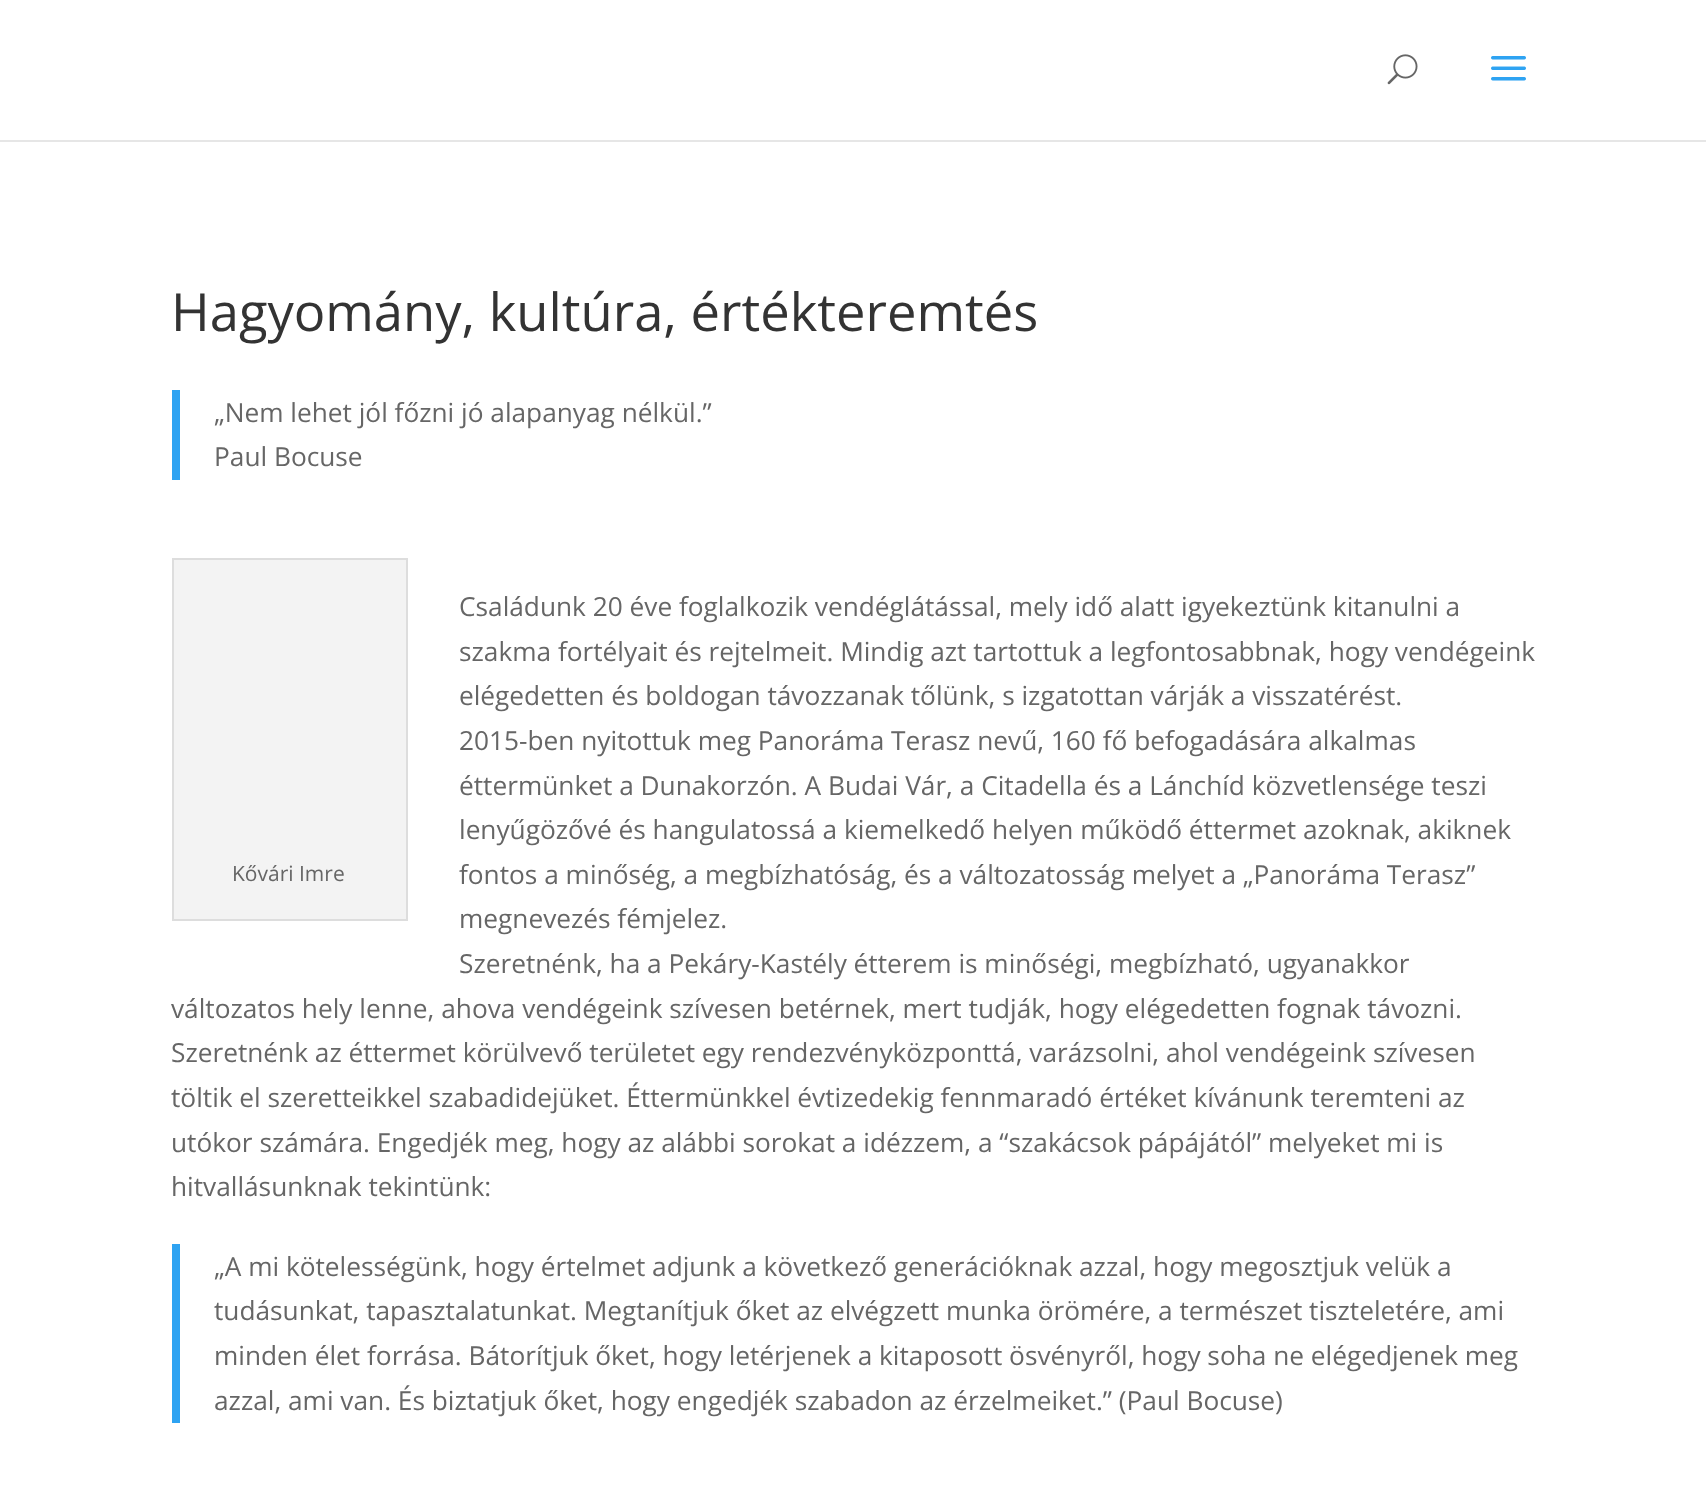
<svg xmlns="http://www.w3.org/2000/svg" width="1706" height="1501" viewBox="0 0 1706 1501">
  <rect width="100%" height="100%" fill="#fff"/>
  <path d="M0 140h1706v2H0z" fill="#e6e6e6"/>
  <image x="1387" y="54" width="31" height="31" href="img/1.png"/>
  <image x="1491" y="56" width="35" height="25" href="img/2.png"/>
  <path d="M172 390h8v90H172z" fill="#2ea3f2"/>
  <path d="M173 559h234v361H173z" fill="#f3f3f3" stroke="#ddd" stroke-width="2"/>
  <path d="M172 1244h8v179H172z" fill="#2ea3f2"/>
  <text x="171" y="331" font-family="Open Sans" font-size="52.5" fill="#333">Hagyomány, kultúra, értékteremtés</text>
  <g font-family="Open Sans" font-size="26.25" fill="#666">
    <text x="214" y="422">„Nem lehet jól főzni jó alapanyag nélkül.”</text>
    <text x="214" y="466">Paul Bocuse</text>
    <text x="459" y="616">Családunk 20 éve foglalkozik vendéglátással, mely idő alatt igyekeztünk kitanulni a</text>
    <text x="459" y="661">szakma fortélyait és rejtelmeit. Mindig azt tartottuk a legfontosabbnak, hogy vendégeink</text>
    <text x="459" y="705">elégedetten és boldogan távozzanak tőlünk, s izgatottan várják a visszatérést.</text>
    <text x="459" y="750">2015-ben nyitottuk meg Panoráma Terasz nevű, 160 fő befogadására alkalmas</text>
    <text x="459" y="795">éttermünket a Dunakorzón. A Budai Vár, a Citadella és a Lánchíd közvetlensége teszi</text>
    <text x="459" y="839">lenyűgözővé és hangulatossá a kiemelkedő helyen működő éttermet azoknak, akiknek</text>
    <text x="459" y="884">fontos a minőség, a megbízhatóság, és a változatosság melyet a „Panoráma Terasz”</text>
    <text x="459" y="928">megnevezés fémjelez.</text>
    <text x="459" y="973">Szeretnénk, ha a Pekáry-Kastély étterem is minőségi, megbízható, ugyanakkor</text>
    <text x="171" y="1018">változatos hely lenne, ahova vendégeink szívesen betérnek, mert tudják, hogy elégedetten fognak távozni.</text>
    <text x="171" y="1062">Szeretnénk az éttermet körülvevő területet egy rendezvényközponttá, varázsolni, ahol vendégeink szívesen</text>
    <text x="171" y="1107">töltik el szeretteikkel szabadidejüket. Éttermünkkel évtizedekig fennmaradó értéket kívánunk teremteni az</text>
    <text x="171" y="1152">utókor számára. Engedjék meg, hogy az alábbi sorokat a idézzem, a “szakácsok pápájától” melyeket mi is</text>
    <text x="171" y="1196">hitvallásunknak tekintünk:</text>
  </g>
  <text x="232" y="881" font-family="Open Sans" font-size="21" fill="#666">Kővári Imre</text>
  <g font-family="Open Sans" font-size="26.25" fill="#666">
    <text x="214" y="1276">„A mi kötelességünk, hogy értelmet adjunk a következő generációknak azzal, hogy megosztjuk velük a</text>
    <text x="214" y="1320">tudásunkat, tapasztalatunkat. Megtanítjuk őket az elvégzett munka örömére, a természet tiszteletére, ami</text>
    <text x="214" y="1365">minden élet forrása. Bátorítjuk őket, hogy letérjenek a kitaposott ösvényről, hogy soha ne elégedjenek meg</text>
    <text x="214" y="1410">azzal, ami van. És biztatjuk őket, hogy engedjék szabadon az érzelmeiket.” (Paul Bocuse)</text>
  </g>
</svg>
